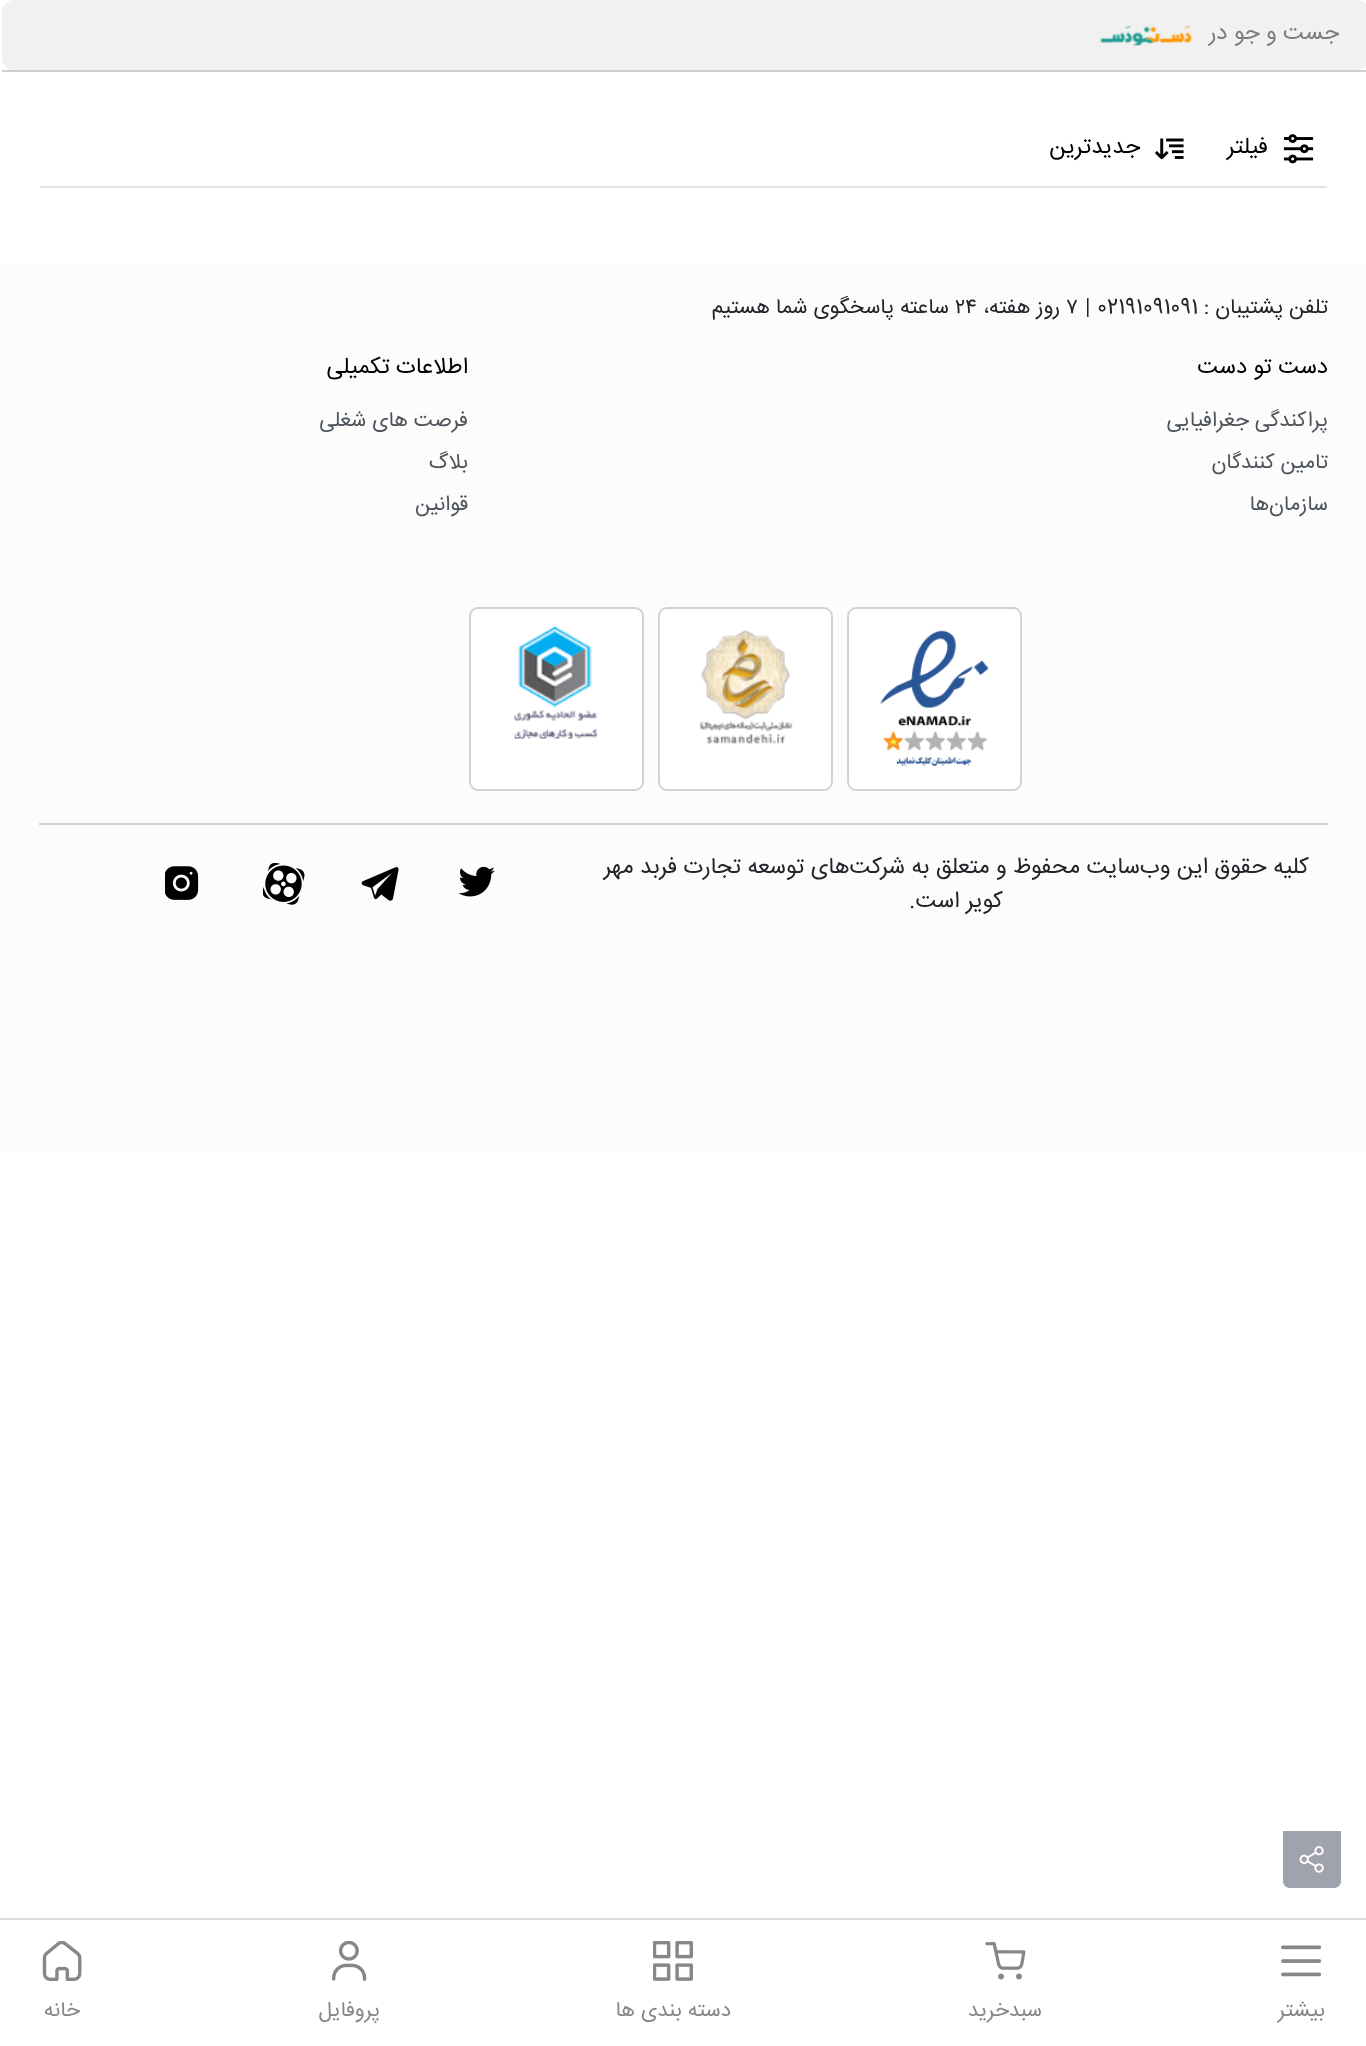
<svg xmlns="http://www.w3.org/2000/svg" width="1366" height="2046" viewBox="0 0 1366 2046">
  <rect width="100%" height="100%" fill="#fff"/>
  <path d="M2 70h1364v2H2z" fill="#cecece"/>
  <rect x="2" width="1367" height="70" rx="12" fill="#f1f1f1"/>
  <image x="1099" y="25" width="94" height="21" href="img/1.png"/>
  <image x="1283" y="134" width="31" height="30" href="img/2.png"/>
  <image x="1155" y="138" width="29" height="22" href="img/3.png"/>
  <path d="M40 186h1287v2H40z" fill="#e2e2e2"/>
  <path d="M0 264h1366v888H0z" fill="#fcfcfc"/>
  <rect x="848" y="608" width="173" height="182" rx="8" fill="#fff" stroke="#d2d2d2" stroke-width="2"/>
  <image x="880" y="630" width="109" height="136" href="img/4.png"/>
  <rect x="659" y="608" width="173" height="182" rx="8" fill="#fff" stroke="#d2d2d2" stroke-width="2"/>
  <image x="699" y="629" width="94" height="115" href="img/5.png"/>
  <rect x="470" y="608" width="173" height="182" rx="8" fill="#fff" stroke="#d2d2d2" stroke-width="2"/>
  <image x="514" y="626" width="83" height="113" href="img/6.png"/>
  <path d="M39 823h1289v2H39z" fill="#d3d3d3"/>
  <image x="459" y="866" width="36" height="31" href="img/7.png"/>
  <image x="361" y="867" width="38" height="34" href="img/8.png"/>
  <image x="263" y="863" width="42" height="42" href="img/9.png"/>
  <image x="165" y="866" width="34" height="34" href="img/10.png"/>
  <path d="M1283 1831H1341V1881C1341 1885 1338 1888 1334 1888H1290C1286 1888 1283 1885 1283 1881Z" fill="#a0a2ad"/>
  <image x="1299" y="1846" width="25" height="27" href="img/11.png"/>
  <path d="M0 1918h1366v2H0z" fill="#dedede"/>
  <image x="1281" y="1945" width="40" height="32" href="img/12.png"/>
  <image x="985" y="1942" width="41" height="38" href="img/13.png"/>
  <image x="653" y="1941" width="40" height="40" href="img/14.png"/>
  <image x="332" y="1941" width="35" height="40" href="img/15.png"/>
  <image x="42" y="1941" width="40" height="40" href="img/16.png"/>
  <text x="1339" y="39" font-family="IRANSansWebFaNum" font-size="22.75" direction="rtl" fill="#7c7c7c">جست و جو در</text>
  <g font-family="IRANSansWebFaNum" font-size="22.75" direction="rtl" fill="#000">
    <text x="1268" y="153">فیلتر</text>
    <text x="1140" y="153">جدیدترین</text>
  </g>
  <text x="1328" y="313" font-family="IRANSansWebFaNum" font-size="21" direction="rtl" fill="#212529">تلفن پشتیبان :</text>
  <g font-family="IRANSansWebFaNum" font-size="21" fill="#212529">
    <text x="1097" y="313">02191091091</text>
    <text x="1085" y="313">|</text>
    <text x="1066" y="313">۷</text>
  </g>
  <text x="1060" y="313" font-family="IRANSansWebFaNum" font-size="21" direction="rtl" fill="#212529">روز هفته،</text>
  <text x="955" y="313" font-family="IRANSansWebFaNum" font-size="21" fill="#212529">۲۴</text>
  <text x="949" y="313" font-family="IRANSansWebFaNum" font-size="21" direction="rtl" fill="#212529">ساعته پاسخگوی شما هستیم</text>
  <text x="1328" y="373" font-family="IRANSansWebFaNum" font-size="22.75" direction="rtl" fill="#000">دست تو دست</text>
  <g font-family="IRANSansWebFaNum" font-size="21" direction="rtl" fill="#4e545c">
    <text x="1328" y="426">پراکندگی جغرافیایی</text>
    <text x="1328" y="468">تامین کنندگان</text>
    <text x="1328" y="510">سازمان‌ها</text>
  </g>
  <text x="468" y="373" font-family="IRANSansWebFaNum" font-size="22.75" direction="rtl" fill="#000">اطلاعات تکمیلی</text>
  <g font-family="IRANSansWebFaNum" font-size="21" direction="rtl" fill="#4e545c">
    <text x="468" y="426">فرصت</text>
    <text x="408" y="426">های شغلی</text>
    <text x="468" y="468">بلاگ</text>
    <text x="468" y="510">قوانین</text>
  </g>
  <g font-family="IRANSansWebFaNum" font-size="22.75" direction="rtl" fill="#212529">
    <text x="1309" y="873">کلیه حقوق این وب‌سایت محفوظ و متعلق به شرکت‌های توسعه تجارت فربد مهر</text>
    <text x="1003" y="907">کویر است.</text>
  </g>
  <g font-family="IRANSansWebFaNum" font-size="21" direction="rtl" fill="#878787">
    <text x="1325" y="2016">بیشتر</text>
    <text x="1042" y="2016">سبدخرید</text>
    <text x="731" y="2016">دسته بندی ها</text>
    <text x="380" y="2016">پروفایل</text>
    <text x="80" y="2016">خانه</text>
  </g>
</svg>
